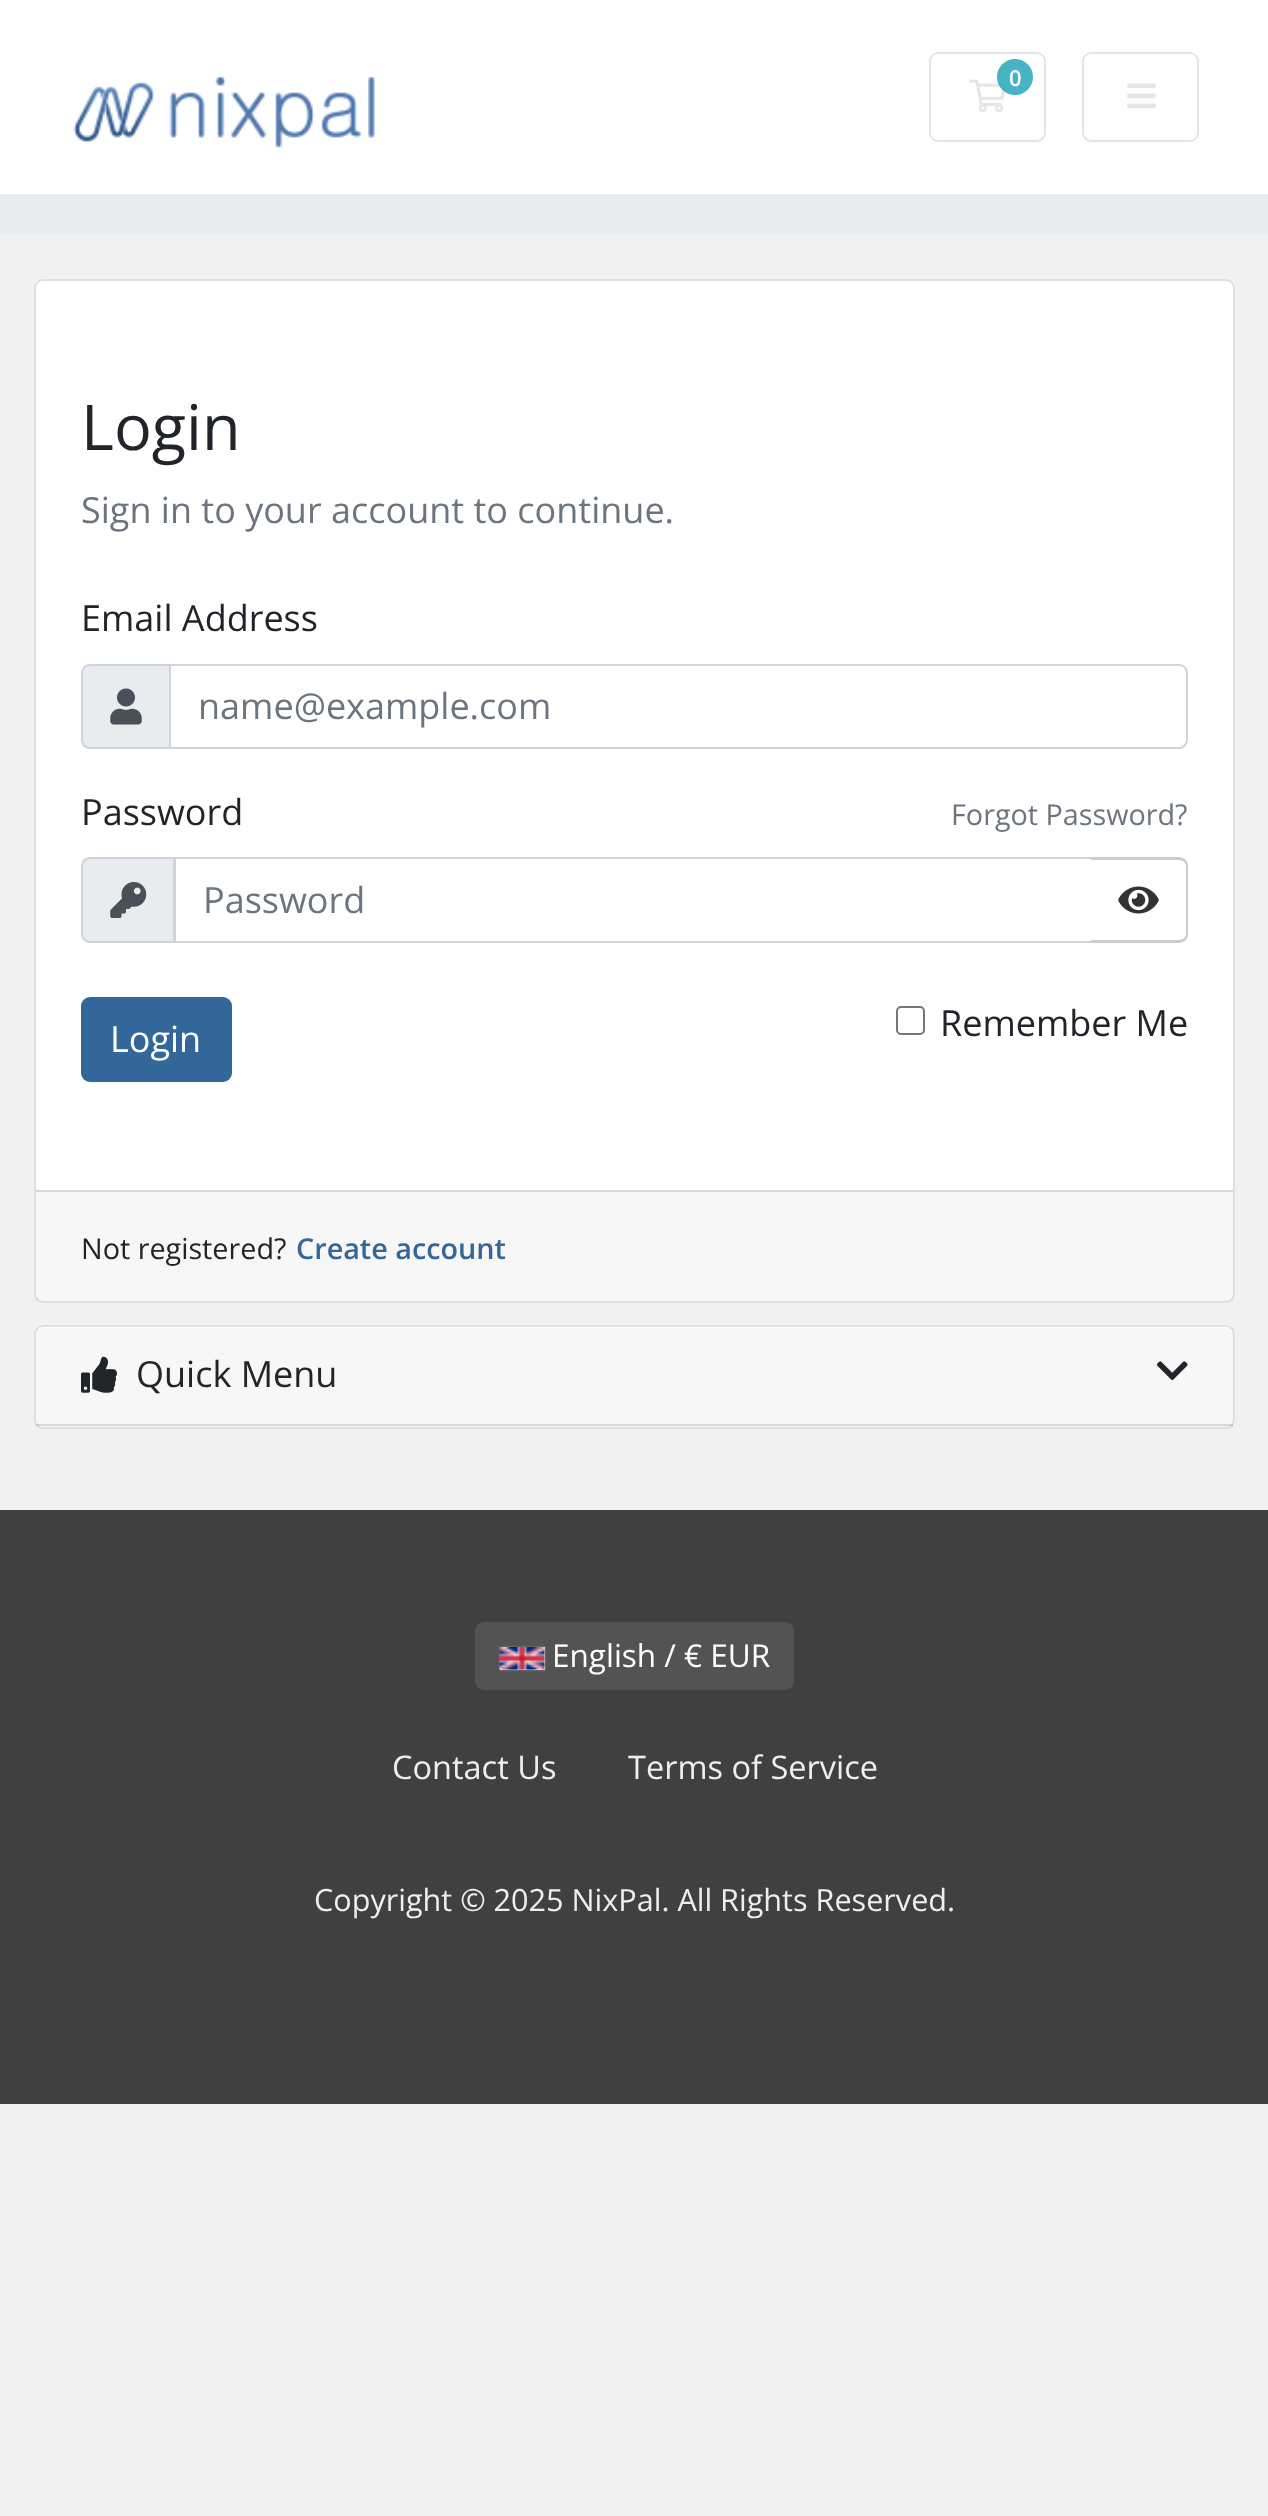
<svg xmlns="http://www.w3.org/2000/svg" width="1268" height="2516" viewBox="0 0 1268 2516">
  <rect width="100%" height="100%" fill="#f1f1f1"/>
  <path d="M0 0h1268v194H0z" fill="#fff"/>
  <image x="73" y="75" width="302" height="73" href="img/1.png"/>
  <rect x="930" y="53" width="115" height="88" rx="8" fill="none" stroke="#e5e5e5" stroke-width="2"/>
  <image x="969" y="79" width="37" height="33" href="img/2.png"/>
  <circle cx="1015" cy="77" r="18" fill="#17a2b8cc"/>
  <rect x="1083" y="53" width="115" height="88" rx="8" fill="none" stroke="#e5e5e5" stroke-width="2"/>
  <image x="1127" y="83" width="29" height="26" href="img/3.png"/>
  <path d="M0 194h1268v40H0z" fill="#e9ecef"/>
  <rect x="34" y="279" width="1201" height="1024" rx="9" fill="#fff"/>
  <rect x="35" y="280" width="1199" height="1022" rx="8" fill="none" stroke="#0000001f" stroke-width="2"/>
  <path d="M90 665H170V748H90C85.5 748 82 744.5 82 740V673C82 668.5 85.5 665 90 665Z" fill="#e9ecef" stroke="#ced4da" stroke-width="2"/>
  <image x="110" y="688" width="32" height="37" href="img/4.png"/>
  <path d="M170 665H1179C1183.5 665 1187 668.5 1187 673V740C1187 744.5 1183.5 748 1179 748H170Z" fill="none" stroke="#ced4da" stroke-width="2"/>
  <path d="M90 858H175V942H90C85.5 942 82 938.5 82 934V866C82 861.5 85.5 858 90 858Z" fill="#e9ecef" stroke="#ced4da" stroke-width="2"/>
  <image x="110" y="882" width="37" height="36" href="img/5.png"/>
  <path d="M174 858h919v84H174z" fill="none" stroke="#ced4da" stroke-width="2"/>
  <path d="M1091 857H1179C1184 857 1188 861 1188 866V934C1188 939 1184 943 1179 943H1091Z" fill="#fff"/>
  <path d="M1091 857H1179C1184 857 1188 861 1188 866V934C1188 939 1184 943 1179 943H1091ZM1091 860H1179C1183 860 1186 863 1186 866V934C1186 937 1183 940 1179 940H1091Z" fill="#ccc" fill-rule="evenodd"/>
  <image x="1118" y="886" width="41" height="28" href="img/6.png"/>
  <rect x="82" y="998" width="149" height="83" rx="8" fill="#369" stroke="#369" stroke-width="2"/>
  <rect x="897" y="1007" width="27" height="27" rx="4" fill="none" stroke="#767676" stroke-width="2"/>
  <path d="M36 1192h1197v109H36z" fill="#00000008"/>
  <path d="M36 1190h1197v2H36z" fill="#d8d8d8"/>
  <rect x="34" y="1325" width="1201" height="104" rx="9" fill="#fff"/>
  <rect x="35" y="1326" width="1199" height="102" rx="8" fill="none" stroke="#0000001f" stroke-width="2"/>
  <path d="M36 1328h1197v99H36z" fill="#00000008"/>
  <path d="M36 1424h1197v2H36z" fill="#0000001f"/>
  <image x="81" y="1356" width="36" height="37" href="img/7.png"/>
  <image x="1156" y="1361" width="32" height="19" href="img/8.png"/>
  <path d="M0 1510h1268v594H0z" fill="#404040"/>
  <rect x="475" y="1622" width="319" height="68" rx="9" fill="#535353"/>
  <path d="M500 1647h45v23H500z" fill="#888" filter="blur(1px)"/>
  <path d="M500 1647h45v23H500z" fill="#dbdbdb"/>
  <image x="499" y="1647" width="46" height="23" href="img/9.png"/>
  <text x="1009" y="86" font-family="Open Sans" font-size="22" font-weight="600" fill="#fff">0</text>
  <text x="81" y="450" font-family="Open Sans" font-size="63" fill="#212529">Login</text>
  <text x="81" y="523" font-family="Open Sans" font-size="36" fill="#6c757d">Sign in to your account to continue.</text>
  <text x="81" y="631" font-family="Open Sans" font-size="36" fill="#212529">Email Address</text>
  <text x="198" y="719" font-family="Open Sans" font-size="36" fill="#6c757d">name@example.com</text>
  <text x="81" y="825" font-family="Open Sans" font-size="36" fill="#212529">Password</text>
  <text x="951" y="825" font-family="Open Sans" font-size="28.75" fill="#6c757d">Forgot Password?</text>
  <text x="203" y="913" font-family="Open Sans" font-size="36" fill="#6c757d">Password</text>
  <text x="110" y="1052" font-family="Open Sans" font-size="36" fill="#fff">Login</text>
  <text x="940" y="1036" font-family="Open Sans" font-size="36" fill="#212529">Remember Me</text>
  <text x="81" y="1259" font-family="Open Sans" font-size="28.75" fill="#212529">Not registered?</text>
  <text x="296" y="1259" font-family="Open Sans" font-size="28.75" font-weight="600" fill="#369">Create account</text>
  <text x="136" y="1387" font-family="Open Sans" font-size="36" fill="#212529">Quick Menu</text>
  <text x="552" y="1667" font-family="Open Sans" font-size="31.5" fill="#fff">English / € EUR</text>
  <g font-family="Open Sans" font-size="32.5" fill="#eee">
    <text x="392" y="1779">Contact Us</text>
    <text x="628" y="1779">Terms of Service</text>
  </g>
  <text x="314" y="1911" font-family="Open Sans" font-size="30.6" fill="#eee">Copyright © 2025 NixPal. All Rights Reserved.</text>
</svg>
